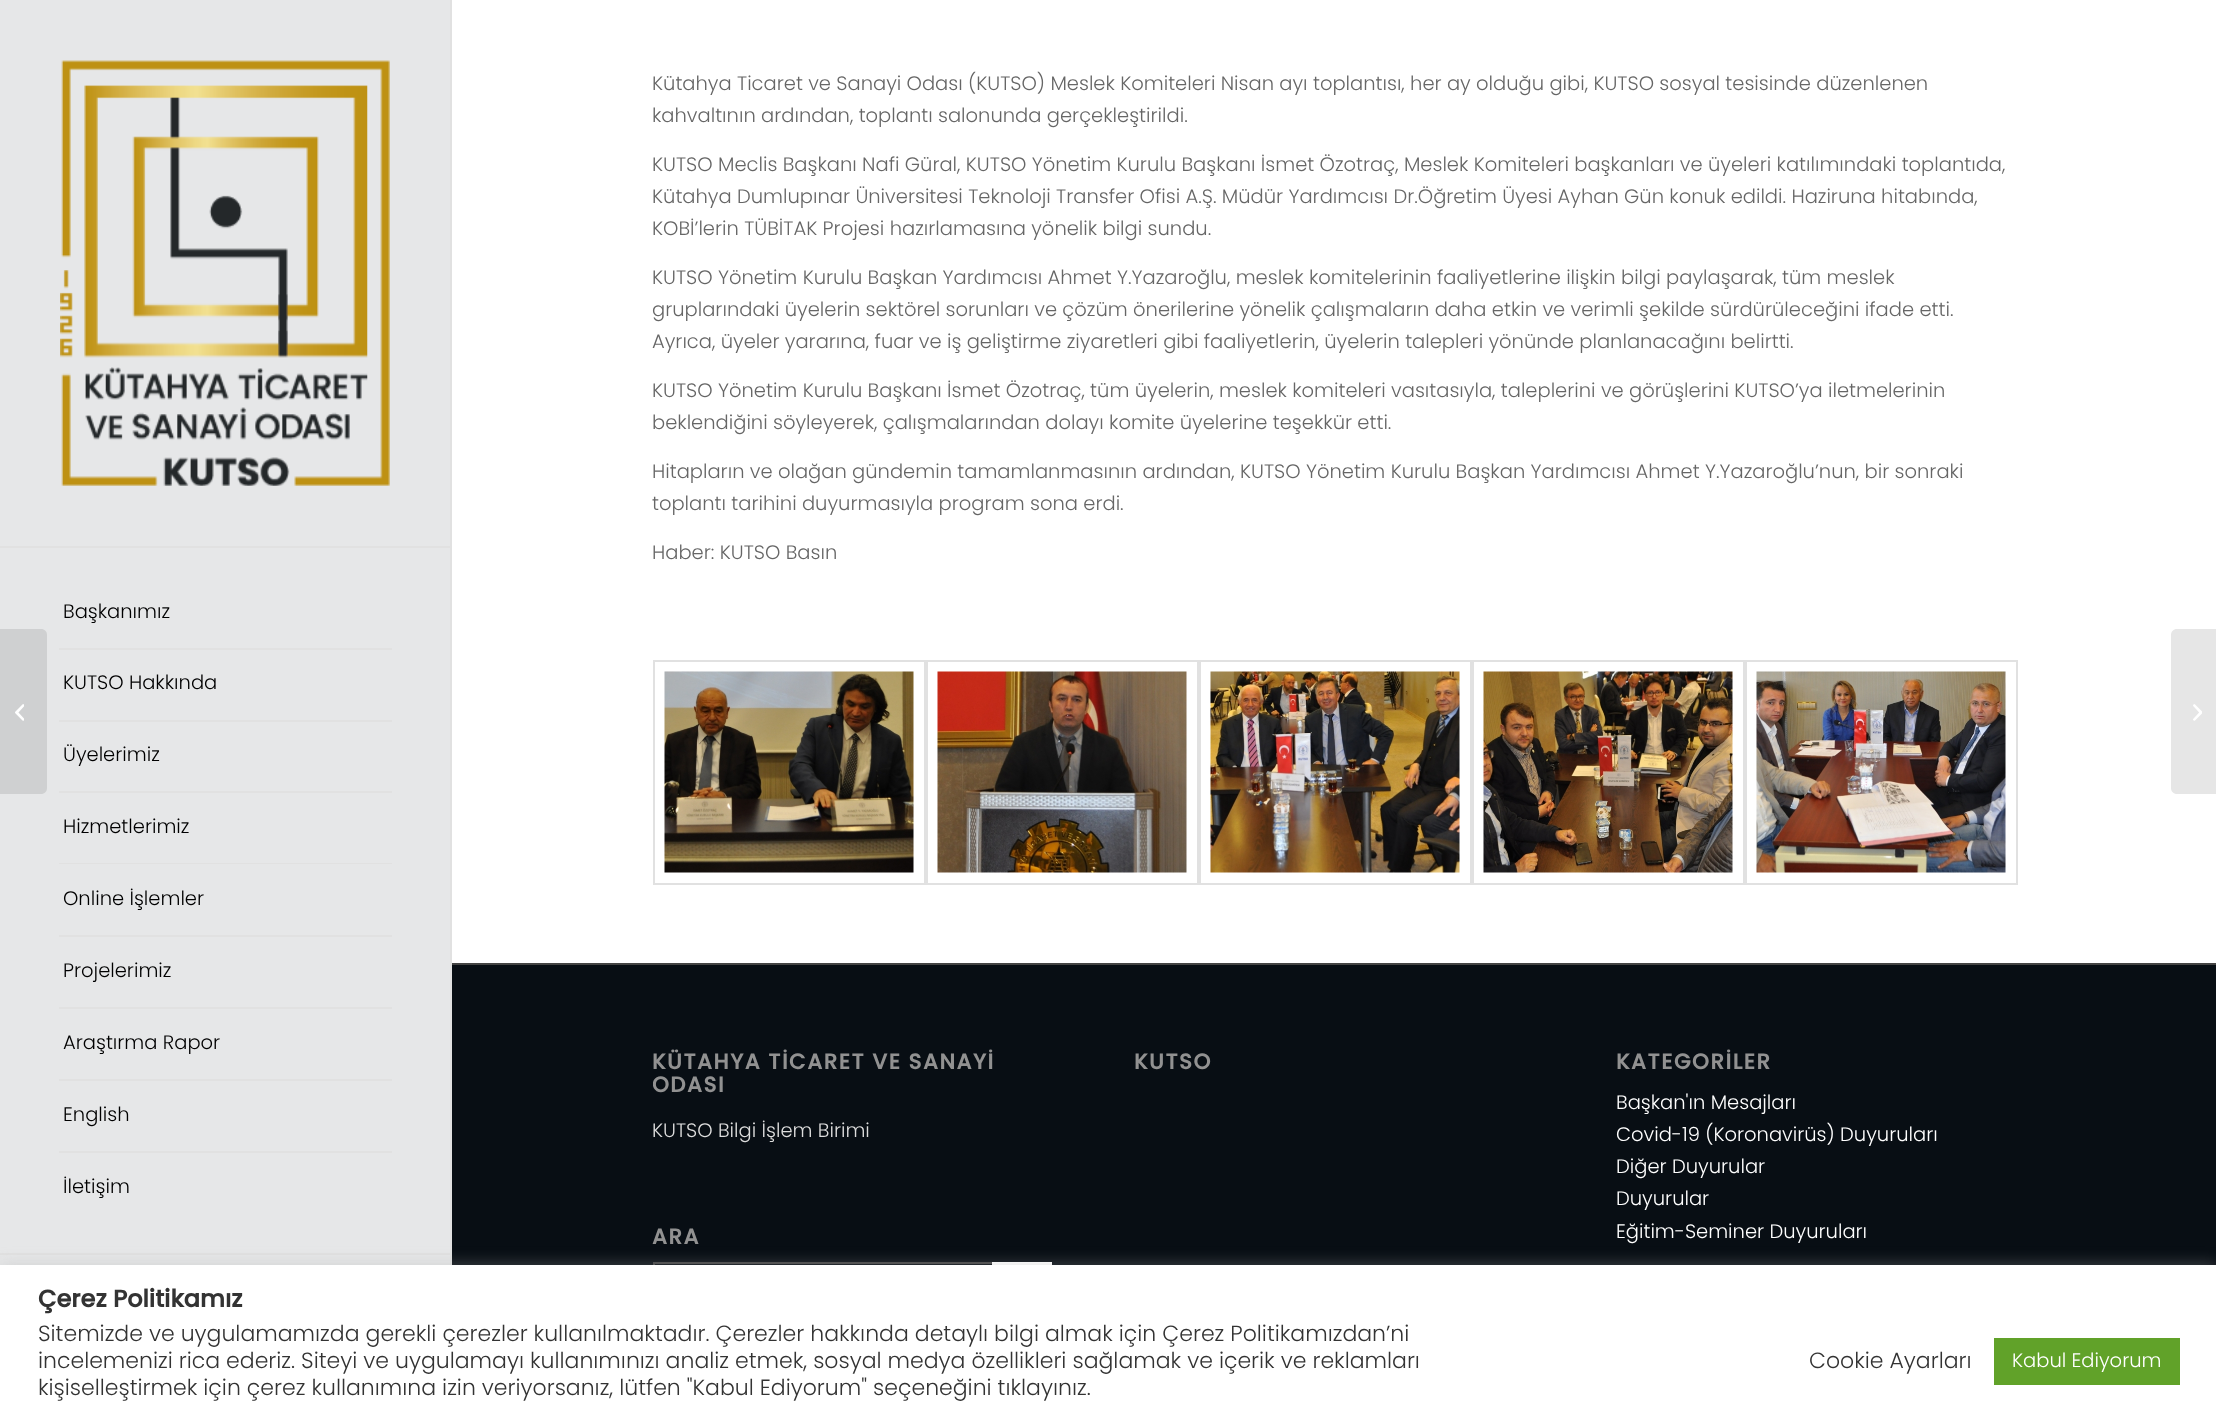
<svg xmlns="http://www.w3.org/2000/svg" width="2216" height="1422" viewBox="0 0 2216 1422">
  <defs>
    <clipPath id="clip1"><path d="M653 1032h399v132H653z"/></clipPath>
  </defs>
  <rect width="100%" height="100%" fill="#e6e7e8"/>
  <path d="M0 629H41C44.5 629 47 631.5 47 635V788C47 791.5 44.5 794 41 794H0Z" fill="#cfd0d1"/>
  <image x="15" y="704" width="9" height="17" href="img/1.png"/>
  <path d="M0 1253h450v2H0z" fill="#e1e1e1"/>
  <path d="M0 546h450v2H0z" fill="#e1e1e1"/>
  <image x="60" y="60" width="330" height="426" href="img/2.png"/>
  <path d="M59 648h333v2H59z" fill="#e1e1e1"/>
  <path d="M59 720h333v2H59z" fill="#e1e1e1"/>
  <path d="M59 791h333v2H59z" fill="#e1e1e1"/>
  <path d="M59 863h333v1H59z" fill="#e1e1e1"/>
  <path d="M59 935h333v2H59z" fill="#e1e1e1"/>
  <path d="M59 1007h333v2H59z" fill="#e1e1e1"/>
  <path d="M59 1079h333v2H59z" fill="#e1e1e1"/>
  <path d="M59 1151h333v2H59z" fill="#e1e1e1"/>
  <path d="M450 0h2v1265H450z" fill="#e1e1e1"/>
  <path d="M452 0h1764v963H452z" fill="#fff"/>
  <path d="M654 661h271v223H654z" fill="none" stroke="#e1e1e1" stroke-width="2"/>
  <image x="664" y="671" width="250" height="202" href="img/3.png"/>
  <path d="M927 661h271v223H927z" fill="none" stroke="#e1e1e1" stroke-width="2"/>
  <image x="937" y="671" width="250" height="202" href="img/4.png"/>
  <path d="M1200 661h271v223H1200z" fill="none" stroke="#e1e1e1" stroke-width="2"/>
  <image x="1210" y="671" width="250" height="202" href="img/5.png"/>
  <path d="M1473 661h271v223H1473z" fill="none" stroke="#e1e1e1" stroke-width="2"/>
  <image x="1483" y="671" width="250" height="202" href="img/6.png"/>
  <path d="M1746 661h271v223H1746z" fill="none" stroke="#e1e1e1" stroke-width="2"/>
  <image x="1756" y="671" width="250" height="202" href="img/7.png"/>
  <path d="M452 965h1764v300H452z" fill="#080e14"/>
  <path d="M452 963h1764v2H452z" fill="#444"/>
  <path d="M654 1263h397v64H654z" fill="none" stroke="#444" stroke-width="2"/>
  <path d="M992 1262h60v3H992z" fill="#fff"/>
  <path d="M2177 629H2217V794H2177C2173.5 794 2171 791.5 2171 788V635C2171 631.5 2173.5 629 2177 629Z" fill="#e6e6e6"/>
  <image x="2193" y="704" width="9" height="17" href="img/8.png"/>
  <path d="M0 1263h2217v158H0z" fill="#acabab4d" filter="blur(7.5px)"/>
  <path d="M0 1265h2216v157H0z" fill="#fff"/>
  <path d="M1994 1338h186v47H1994z" fill="#61a229"/>
  <g font-family="Poppins" font-size="19.5" font-weight="300" fill="#000">
    <text x="63" y="618">Başkanımız</text>
    <text x="63" y="689">KUTSO Hakkında</text>
    <text x="63" y="761">Üyelerimiz</text>
    <text x="63" y="833">Hizmetlerimiz</text>
    <text x="63" y="905">Online İşlemler</text>
    <text x="63" y="977">Projelerimiz</text>
    <text x="63" y="1049">Araştırma Rapor</text>
    <text x="63" y="1121">English</text>
    <text x="63" y="1193">İletişim</text>
  </g>
  <g font-family="Poppins" font-size="19.5" font-weight="300" fill="#666">
    <text x="652" y="90">Kütahya Ticaret ve Sanayi Odası (KUTSO) Meslek Komiteleri Nisan ayı toplantısı, her ay olduğu gibi, KUTSO sosyal tesisinde düzenlenen</text>
    <text x="652" y="122">kahvaltının ardından, toplantı salonunda gerçekleştirildi.</text>
    <text x="652" y="171">KUTSO Meclis Başkanı Nafi Güral, KUTSO Yönetim Kurulu Başkanı İsmet Özotraç, Meslek Komiteleri başkanları ve üyeleri katılımındaki toplantıda,</text>
    <text x="652" y="203">Kütahya Dumlupınar Üniversitesi Teknoloji Transfer Ofisi A.Ş. Müdür Yardımcısı Dr.Öğretim Üyesi Ayhan Gün konuk edildi. Haziruna hitabında,</text>
    <text x="652" y="235">KOBİ’lerin TÜBİTAK Projesi hazırlamasına yönelik bilgi sundu.</text>
    <text x="652" y="284">KUTSO Yönetim Kurulu Başkan Yardımcısı Ahmet Y.Yazaroğlu, meslek komitelerinin faaliyetlerine ilişkin bilgi paylaşarak, tüm meslek</text>
    <text x="652" y="316">gruplarındaki üyelerin sektörel sorunları ve çözüm önerilerine yönelik çalışmaların daha etkin ve verimli şekilde sürdürüleceğini ifade etti.</text>
    <text x="652" y="348">Ayrıca, üyeler yararına, fuar ve iş geliştirme ziyaretleri gibi faaliyetlerin, üyelerin talepleri yönünde planlanacağını belirtti.</text>
    <text x="652" y="397">KUTSO Yönetim Kurulu Başkanı İsmet Özotraç, tüm üyelerin, meslek komiteleri vasıtasıyla, taleplerini ve görüşlerini KUTSO’ya iletmelerinin</text>
    <text x="652" y="429">beklendiğini söyleyerek, çalışmalarından dolayı komite üyelerine teşekkür etti.</text>
    <text x="652" y="478">Hitapların ve olağan gündemin tamamlanmasının ardından, KUTSO Yönetim Kurulu Başkan Yardımcısı Ahmet Y.Yazaroğlu’nun, bir sonraki</text>
    <text x="652" y="510">toplantı tarihini duyurmasıyla program sona erdi.</text>
    <text x="652" y="559">Haber: KUTSO Basın</text>
  </g>
  <text x="652" y="1069" font-family="Poppins" font-size="21.5" font-weight="bold" letter-spacing="1.5" fill="#919191">KÜTAHYA TİCARET VE SANAYİ</text>
  <g clip-path="url(#clip1)">
    <text x="652" y="1092" font-family="Poppins" font-size="21.5" font-weight="bold" letter-spacing="1.5" fill="#919191">ODASI</text>
  </g>
  <text x="652" y="1137" font-family="Poppins" font-size="19.5" font-weight="300" fill="#ddd">KUTSO Bilgi İşlem Birimi</text>
  <g font-family="Poppins" font-size="21.5" font-weight="bold" letter-spacing="1.5" fill="#919191">
    <text x="652" y="1244">ARA</text>
    <text x="1134" y="1069">KUTSO</text>
    <text x="1616" y="1069">KATEGORİLER</text>
  </g>
  <g font-family="Poppins" font-size="19.5" font-weight="300" fill="#fff">
    <text x="1616" y="1109">Başkan'ın Mesajları</text>
    <text x="1616" y="1141">Covid-19 (Koronavirüs) Duyuruları</text>
    <text x="1616" y="1173">Diğer Duyurular</text>
    <text x="1616" y="1205">Duyurular</text>
    <text x="1616" y="1238">Eğitim-Seminer Duyuruları</text>
  </g>
  <text x="38" y="1307" font-family="Poppins" font-size="24" font-weight="bold" fill="#333">Çerez Politikamız</text>
  <g font-family="Poppins" font-size="22" font-weight="300" fill="#333">
    <text x="38" y="1341">Sitemizde ve uygulamamızda gerekli çerezler kullanılmaktadır. Çerezler hakkında detaylı bilgi almak için Çerez Politikamızdan’ni</text>
    <text x="38" y="1368">incelemenizi rica ederiz. Siteyi ve uygulamayı kullanımınızı analiz etmek, sosyal medya özellikleri sağlamak ve içerik ve reklamları</text>
    <text x="38" y="1395">kişiselleştirmek için çerez kullanımına izin veriyorsanız, lütfen "Kabul Ediyorum" seçeneğini tıklayınız.</text>
    <text x="1809" y="1368">Cookie Ayarları</text>
  </g>
  <text x="2012" y="1367" font-family="Poppins" font-size="19.5" font-weight="300" fill="#fff">Kabul Ediyorum</text>
</svg>
